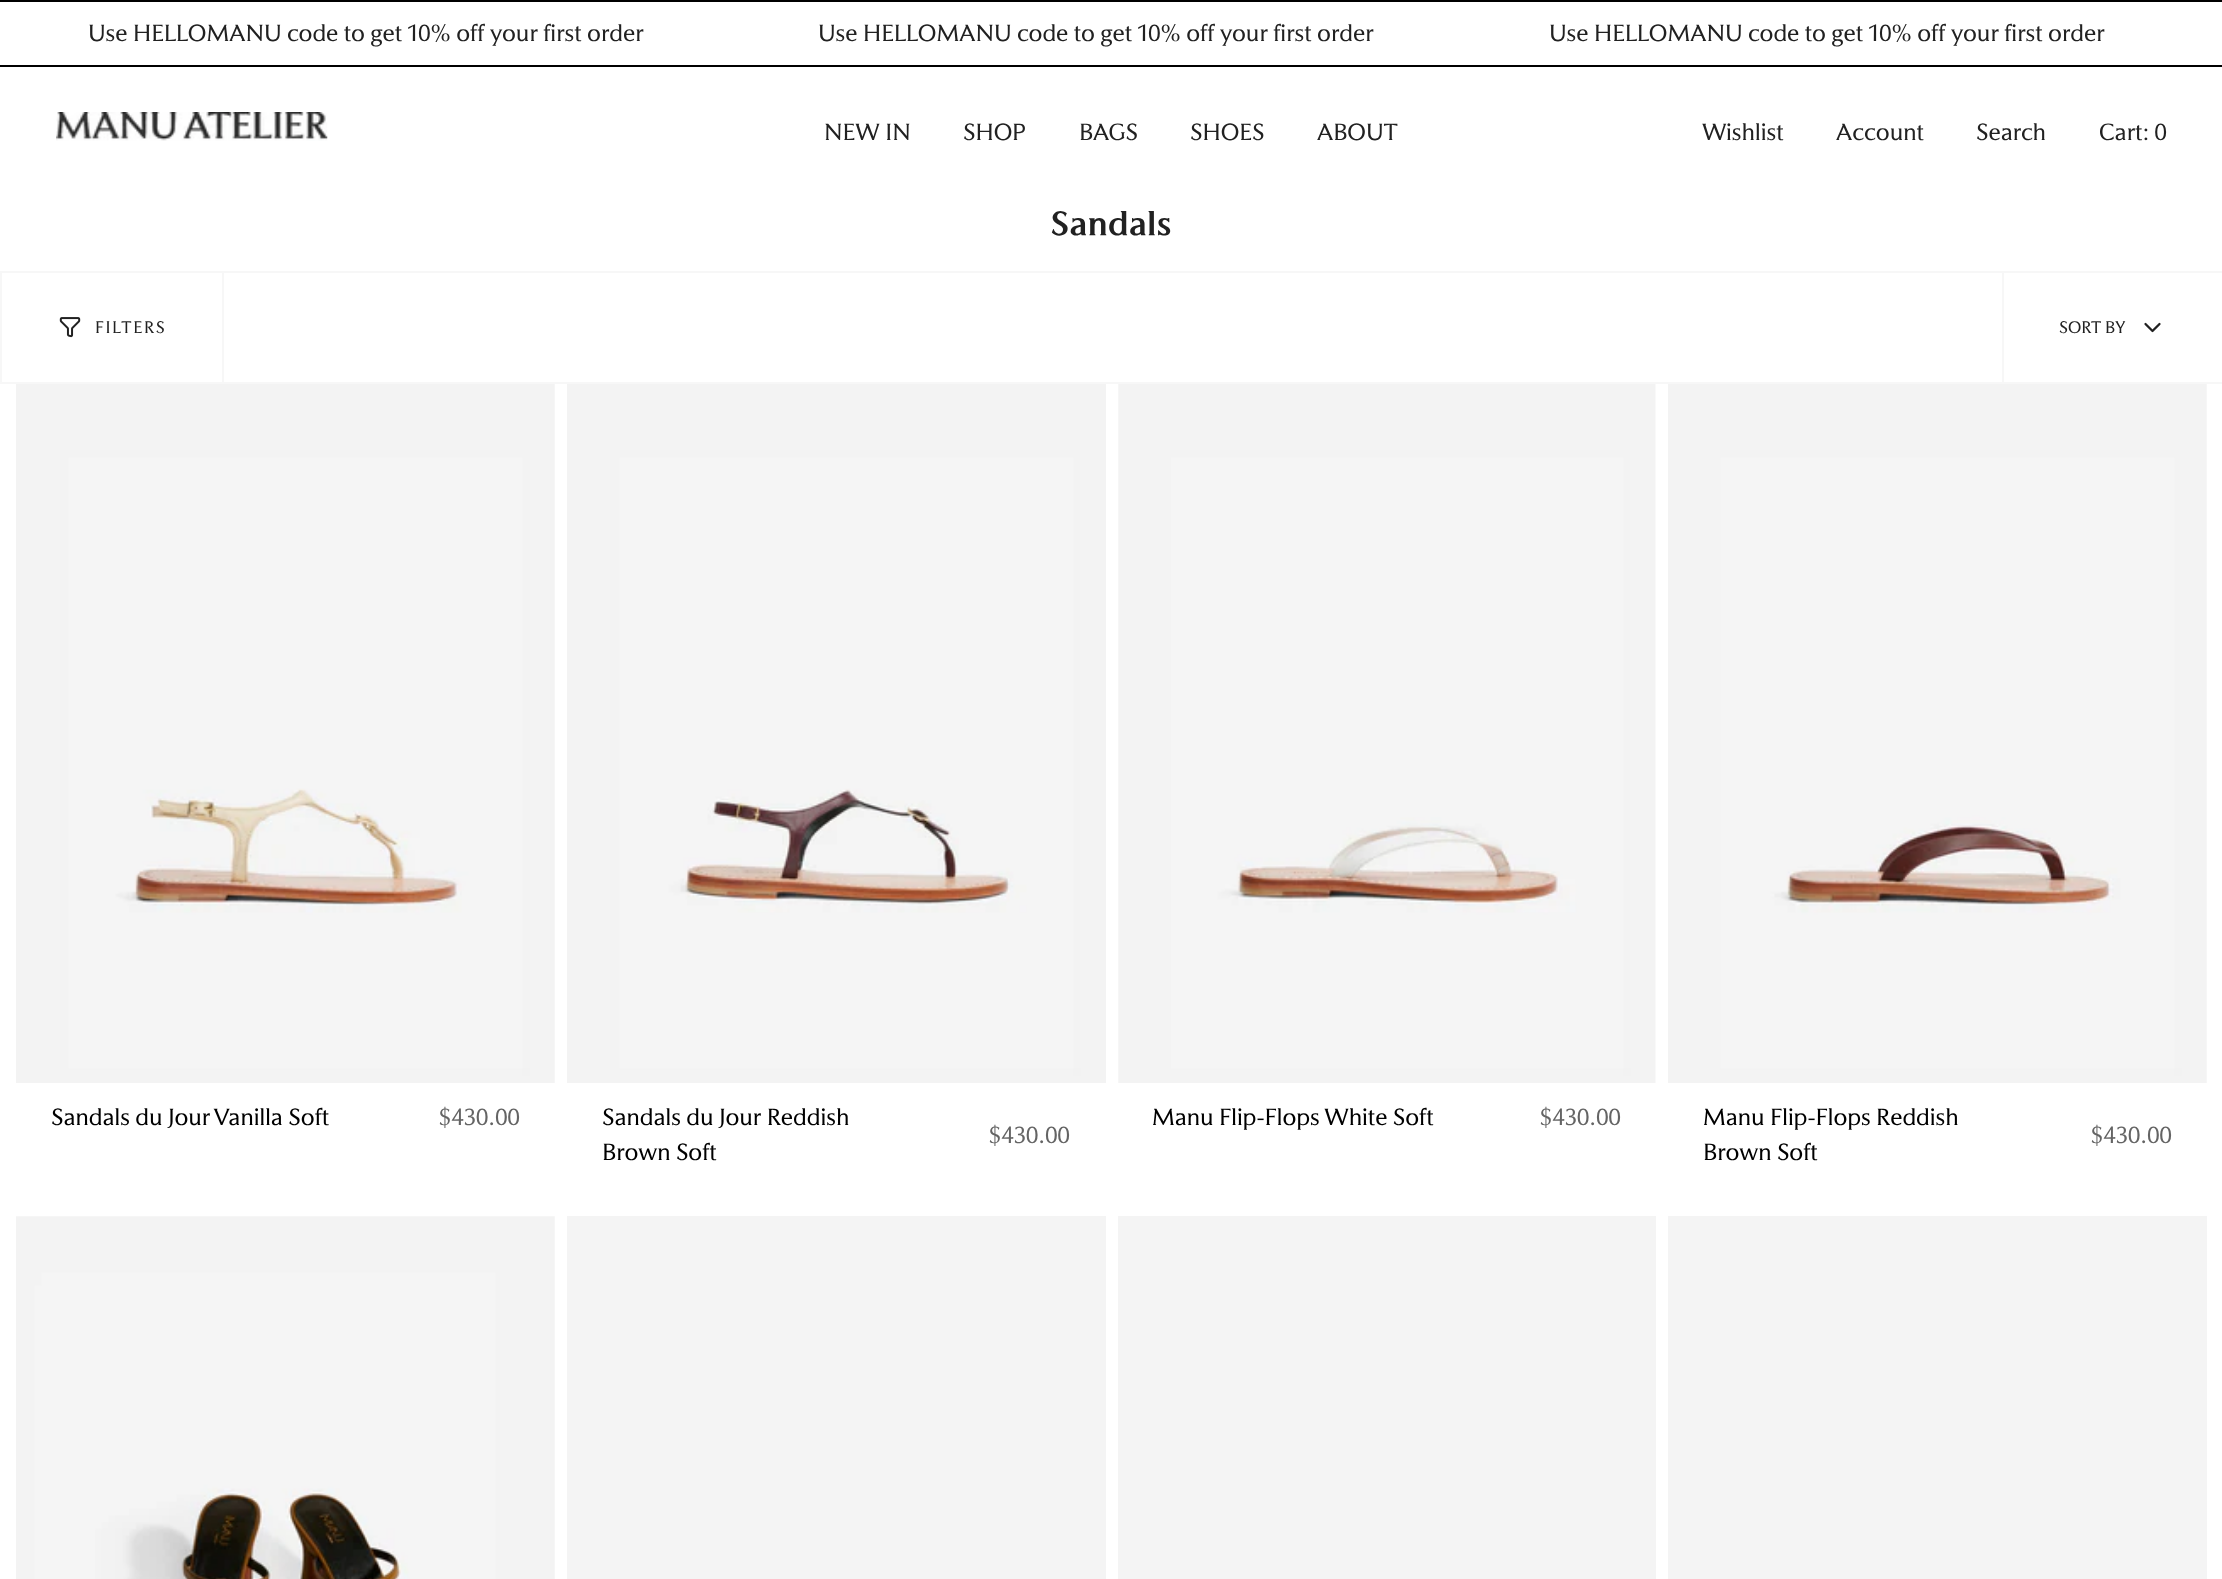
<svg xmlns="http://www.w3.org/2000/svg" width="2222" height="1579" viewBox="0 0 2222 1579">
  <rect width="100%" height="100%" fill="#fff"/>
  <path d="M0 0h2222v2H0z" fill="#000"/>
  <path d="M0 65h2222v2H0z" fill="#000"/>
  <image x="56" y="112" width="272" height="29" href="img/1.png"/>
  <path d="M0 271h2222v2H0z" fill="#f7f7f7"/>
  <path d="M0 382h2222v2H0z" fill="#f7f7f7"/>
  <path d="M222 273h2v109H222z" fill="#f7f7f7"/>
  <path d="M0 273h2v109H0z" fill="#f7f7f7"/>
  <image x="59" y="317" width="22" height="21" href="img/2.png"/>
  <path d="M2002 273h2v109H2002z" fill="#f7f7f7"/>
  <path d="M2145.5 324L2152.5 331L2159.5 324" fill="none" stroke="#212121" stroke-width="2.3" stroke-linecap="round" stroke-linejoin="round"/>
  <image x="16" y="384" width="539" height="699" href="img/3.png"/>
  <image x="567" y="384" width="539" height="699" href="img/4.png"/>
  <image x="1118" y="384" width="538" height="699" href="img/5.png"/>
  <image x="1668" y="384" width="539" height="699" href="img/6.png"/>
  <image x="16" y="1216" width="539" height="363" href="img/7.png"/>
  <path d="M567 1216h539v363H567z" fill="#f4f4f4"/>
  <path d="M1118 1216h538v363H1118z" fill="#f4f4f4"/>
  <path d="M1668 1216h539v363H1668z" fill="#f4f4f4"/>
  <g font-family="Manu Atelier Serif" font-size="24.5" font-weight="500" fill="#212121">
    <text x="88" y="41">Use HELLOMANU code to get 10% off your first order</text>
    <text x="818" y="41">Use HELLOMANU code to get 10% off your first order</text>
    <text x="1549" y="41">Use HELLOMANU code to get 10% off your first order</text>
    <text x="824" y="140">NEW IN</text>
    <text x="963" y="140">SHOP</text>
    <text x="1079" y="140">BAGS</text>
    <text x="1190" y="140">SHOES</text>
    <text x="1317" y="140">ABOUT</text>
    <text x="1702" y="140">Wishlist</text>
    <text x="1836" y="140">Account</text>
    <text x="1976" y="140">Search</text>
    <text x="2099" y="140">Cart: 0</text>
  </g>
  <text x="1050" y="235" font-family="Manu Atelier Serif" font-size="35" font-weight="bold" fill="#212121">Sandals</text>
  <text x="95" y="333" font-family="Manu Atelier Serif" font-size="17.5" font-weight="500" letter-spacing="1.75" fill="#212121">FILTERS</text>
  <text x="2059" y="333" font-family="Manu Atelier Serif" font-size="17.5" font-weight="500" fill="#212121">SORT BY</text>
  <text x="51" y="1125" font-family="Manu Atelier Serif" font-size="24.5" font-weight="500" fill="#000">Sandals du Jour Vanilla Soft</text>
  <text x="438" y="1125" font-family="Manu Atelier Serif" font-size="24.5" font-weight="500" fill="#646464">$430.00</text>
  <g font-family="Manu Atelier Serif" font-size="24.5" font-weight="500" fill="#000">
    <text x="602" y="1125">Sandals du Jour Reddish</text>
    <text x="602" y="1160">Brown Soft</text>
  </g>
  <text x="988" y="1143" font-family="Manu Atelier Serif" font-size="24.5" font-weight="500" fill="#646464">$430.00</text>
  <text x="1152" y="1125" font-family="Manu Atelier Serif" font-size="24.5" font-weight="500" fill="#000">Manu Flip-Flops White Soft</text>
  <text x="1539" y="1125" font-family="Manu Atelier Serif" font-size="24.5" font-weight="500" fill="#646464">$430.00</text>
  <g font-family="Manu Atelier Serif" font-size="24.5" font-weight="500" fill="#000">
    <text x="1703" y="1125">Manu Flip-Flops Reddish</text>
    <text x="1703" y="1160">Brown Soft</text>
  </g>
  <text x="2090" y="1143" font-family="Manu Atelier Serif" font-size="24.5" font-weight="500" fill="#646464">$430.00</text>
</svg>
